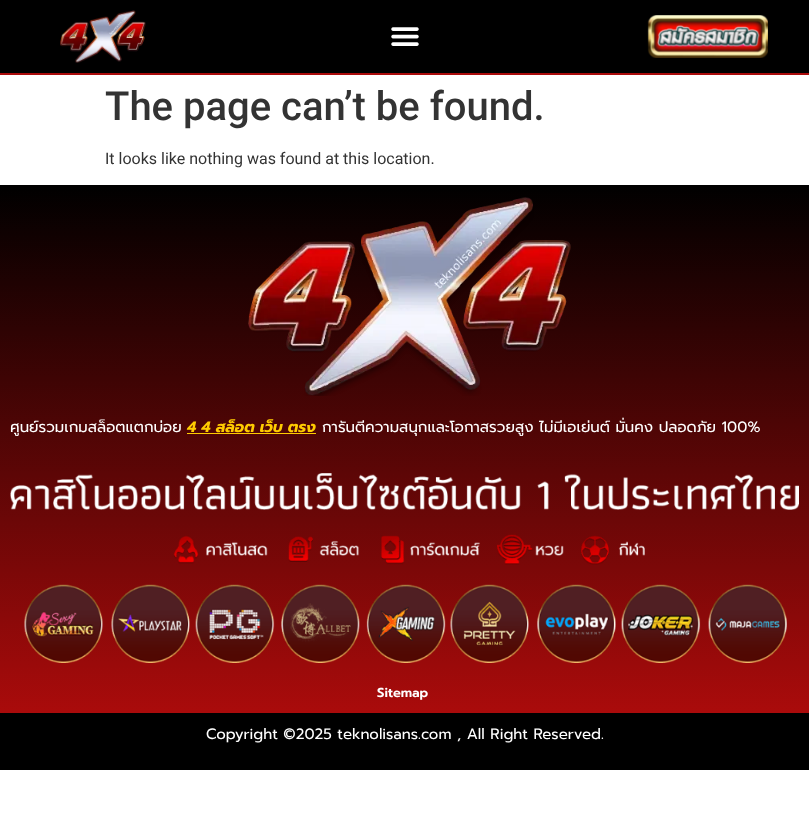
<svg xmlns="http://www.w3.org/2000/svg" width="809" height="825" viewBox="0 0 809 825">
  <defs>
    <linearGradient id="g1" gradientUnits="userSpaceOnUse" x1="404" y1="185" x2="405" y2="713"><stop offset="0" stop-color="#000"/><stop offset="1" stop-color="#aa0b0b"/></linearGradient>
  </defs>
  <rect width="100%" height="100%" fill="#fff"/>
  <path d="M0 0h809v73H0z" fill="#000"/>
  <path d="M0 73h809v2H0z" fill="#aa0b0b"/>
  <image x="60" y="10" width="86" height="53" href="img/1.png"/>
  <image x="391" y="27" width="28" height="19" href="img/2.png"/>
  <image x="647" y="15" width="121" height="43" href="img/3.png"/>
  <path d="M0 185h809v528H0z" fill="url(#g1)"/>
  <image x="248" y="197" width="323" height="199" href="img/4.png"/>
  <path d="M187 433h129v1H187z" fill="#fc0"/>
  <image x="10" y="473" width="789" height="190" href="img/5.png"/>
  <path d="M0 713h809v57H0z" fill="#000"/>
  <text x="105" y="120" font-family="Roboto" font-size="40" font-weight="500" fill="#333">The page can’t be found.</text>
  <text x="105" y="164" font-family="Roboto" font-size="16" fill="#333">It looks like nothing was found at this location.</text>
  <text x="10" y="432" font-family="Prompt" font-size="15" fill="#fff">ศูนย์รวมเกมสล็อตแตกบ่อย</text>
  <text x="187" y="432" font-family="Prompt" font-size="15" font-weight="bold" font-style="italic" fill="#fc0">4 4 สล็อต เว็บ ตรง</text>
  <text x="322" y="432" font-family="Prompt" font-size="15" fill="#fff">การันตีความสนุกและโอกาสรวยสูง ไม่มีเอเย่นต์ มั่นคง ปลอดภัย 100%</text>
  <text x="377" y="697" font-family="Prompt" font-size="13" font-weight="600" fill="#fff">Sitemap</text>
  <text x="206" y="739" font-family="Prompt" font-size="15" fill="#fff">Copyright ©2025 teknolisans.com , All Right Reserved.</text>
</svg>
